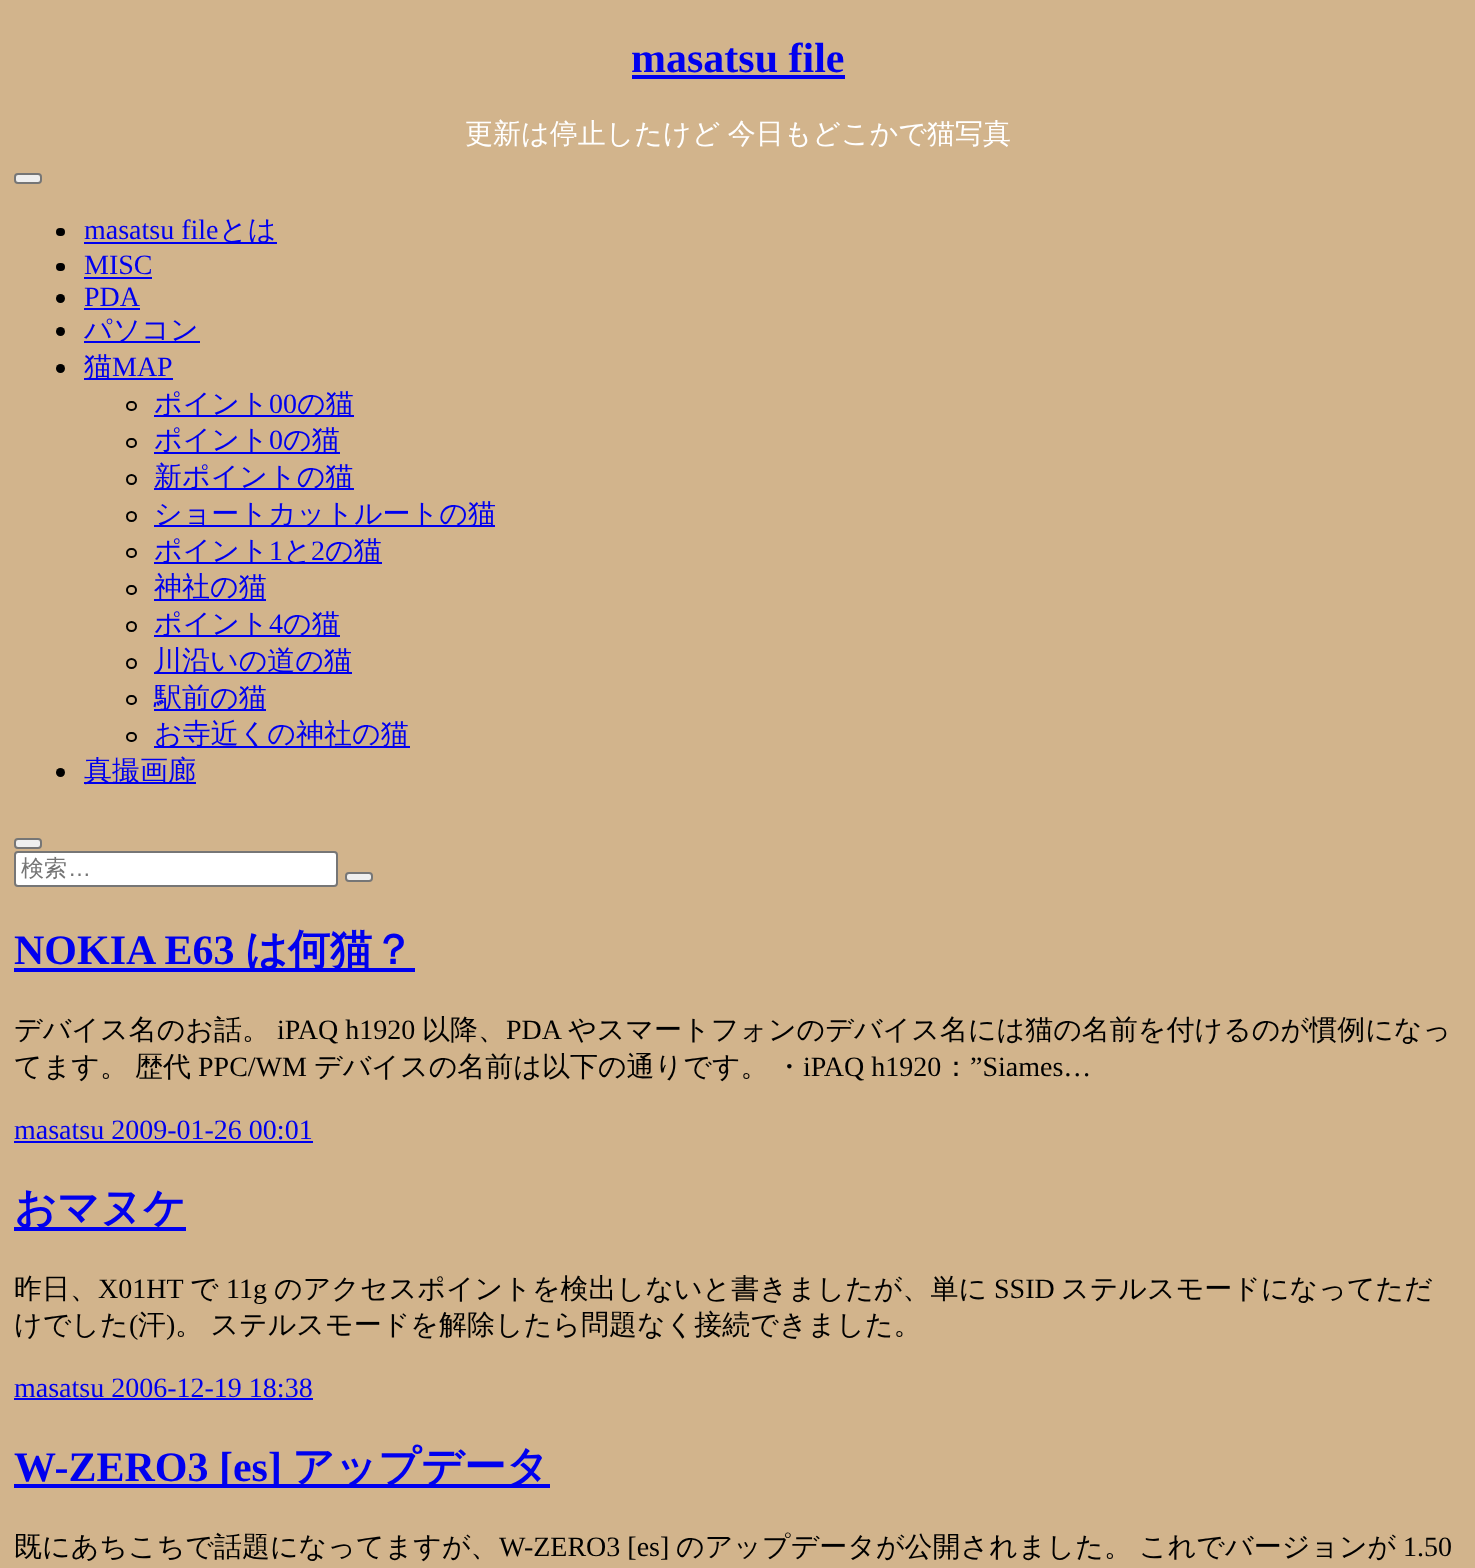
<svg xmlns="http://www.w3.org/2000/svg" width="1475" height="1568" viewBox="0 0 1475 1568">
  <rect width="100%" height="100%" fill="#d2b48c"/>
  <path d="M632 75h213v4H632z" fill="#00e"/>
  <rect x="15" y="174" width="26" height="9" rx="3" fill="#efefef" stroke="#767676" stroke-width="2"/>
  <rect x="56" y="228" width="9" height="8" rx="4" fill="#000"/>
  <path d="M84 242h193v2H84z" fill="#00e"/>
  <rect x="56" y="263" width="9" height="8" rx="4" fill="#000"/>
  <path d="M84 277h68v2H84z" fill="#00e"/>
  <circle cx="60.5" cy="298.5" r="4.5" fill="#000"/>
  <path d="M84 308h56v2H84z" fill="#00e"/>
  <circle cx="60.5" cy="331.5" r="4.5" fill="#000"/>
  <path d="M84 341h116v2H84z" fill="#00e"/>
  <circle cx="60.5" cy="368.5" r="4.5" fill="#000"/>
  <path d="M84 378h89v2H84z" fill="#00e"/>
  <rect x="127" y="402" width="9" height="8" rx="4" fill="none" stroke="#000" stroke-width="2"/>
  <path d="M154 415h200v2H154z" fill="#00e"/>
  <rect x="127" y="439" width="9" height="8" rx="4" fill="none" stroke="#000" stroke-width="2"/>
  <path d="M154 452h186v2H154z" fill="#00e"/>
  <circle cx="131.5" cy="479.5" r="4.5" fill="none" stroke="#000" stroke-width="2"/>
  <path d="M154 488h200v2H154z" fill="#00e"/>
  <circle cx="131.5" cy="516.5" r="4.5" fill="none" stroke="#000" stroke-width="2"/>
  <path d="M154 525h341v2H154z" fill="#00e"/>
  <rect x="127" y="549" width="9" height="8" rx="4" fill="none" stroke="#000" stroke-width="2"/>
  <path d="M154 562h228v2H154z" fill="#00e"/>
  <rect x="127" y="586" width="9" height="8" rx="4" fill="none" stroke="#000" stroke-width="2"/>
  <path d="M154 599h112v2H154z" fill="#00e"/>
  <circle cx="131.5" cy="626.5" r="4.5" fill="none" stroke="#000" stroke-width="2"/>
  <path d="M154 635h186v2H154z" fill="#00e"/>
  <circle cx="131.5" cy="663.5" r="4.5" fill="none" stroke="#000" stroke-width="2"/>
  <path d="M154 672h198v2H154z" fill="#00e"/>
  <rect x="127" y="696" width="9" height="8" rx="4" fill="none" stroke="#000" stroke-width="2"/>
  <path d="M154 709h112v2H154z" fill="#00e"/>
  <rect x="127" y="733" width="9" height="8" rx="4" fill="none" stroke="#000" stroke-width="2"/>
  <path d="M154 746h256v2H154z" fill="#00e"/>
  <circle cx="60.5" cy="772.5" r="4.5" fill="#000"/>
  <path d="M84 782h112v2H84z" fill="#00e"/>
  <rect x="15" y="839" width="26" height="9" rx="3" fill="#efefef" stroke="#767676" stroke-width="2"/>
  <rect x="15" y="852" width="322" height="34" rx="3" fill="#fff" stroke="#767676" stroke-width="2"/>
  <rect x="346" y="873" width="26" height="8" rx="3" fill="#efefef" stroke="#767676" stroke-width="2"/>
  <path d="M14 968h401v4H14z" fill="#00e"/>
  <path d="M14 1141h299v2H14z" fill="#00e"/>
  <path d="M14 1227h172v4H14z" fill="#00e"/>
  <path d="M14 1398h299v2H14z" fill="#00e"/>
  <path d="M14 1484h536v4H14z" fill="#00e"/>
  <text x="631" y="72" font-family="Liberation Serif" font-size="42" font-weight="bold" fill="#00e">masatsu file</text>
  <text x="465" y="143" word-spacing="-1" font-family="WenQuanYi Zen Hei" font-size="28" font-weight="500" fill="#fff">更新は停止したけど 今日もどこかで猫写真</text>
  <text x="84" y="239" font-family="Liberation Serif" font-size="28" fill="#00e">masatsu file</text>
  <text x="219" y="239" font-family="WenQuanYi Zen Hei" font-size="28" font-weight="500" fill="#00e">とは</text>
  <g font-family="Liberation Serif" font-size="28" fill="#00e">
    <text x="84" y="274">MISC</text>
    <text x="84" y="306">PDA</text>
  </g>
  <g font-family="WenQuanYi Zen Hei" font-size="28" font-weight="500" fill="#00e">
    <text x="84" y="339">パソコン</text>
    <text x="84" y="376">猫</text>
  </g>
  <text x="112" y="376" font-family="Liberation Serif" font-size="28" fill="#00e">MAP</text>
  <text x="154" y="413" font-family="WenQuanYi Zen Hei" font-size="28" font-weight="500" fill="#00e">ポイント</text>
  <text x="269" y="413" font-family="Liberation Serif" font-size="28" fill="#00e">00</text>
  <g font-family="WenQuanYi Zen Hei" font-size="28" font-weight="500" fill="#00e">
    <text x="297" y="413">の猫</text>
    <text x="154" y="449">ポイント</text>
  </g>
  <text x="269" y="449" font-family="Liberation Serif" font-size="28" fill="#00e">0</text>
  <g font-family="WenQuanYi Zen Hei" font-size="28" font-weight="500" fill="#00e">
    <text x="283" y="449">の猫</text>
    <text x="154" y="486">新ポイントの猫</text>
    <text x="154" y="523">ショートカットルートの猫</text>
    <text x="154" y="560">ポイント</text>
  </g>
  <text x="269" y="560" font-family="Liberation Serif" font-size="28" fill="#00e">1</text>
  <text x="283" y="560" font-family="WenQuanYi Zen Hei" font-size="28" font-weight="500" fill="#00e">と</text>
  <text x="311" y="560" font-family="Liberation Serif" font-size="28" fill="#00e">2</text>
  <g font-family="WenQuanYi Zen Hei" font-size="28" font-weight="500" fill="#00e">
    <text x="325" y="560">の猫</text>
    <text x="154" y="596">神社の猫</text>
    <text x="154" y="633">ポイント</text>
  </g>
  <text x="269" y="633" font-family="Liberation Serif" font-size="28" fill="#00e">4</text>
  <g font-family="WenQuanYi Zen Hei" font-size="28" font-weight="500" fill="#00e">
    <text x="283" y="633">の猫</text>
    <text x="154" y="670">川沿いの道の猫</text>
    <text x="154" y="707">駅前の猫</text>
    <text x="154" y="743">お寺近くの神社の猫</text>
    <text x="84" y="780">真撮画廊</text>
  </g>
  <text x="21" y="876" font-family="WenQuanYi Zen Hei" font-size="23" font-weight="500" fill="#757575">検索</text>
  <text x="68" y="876" font-family="Liberation Sans" font-size="23" fill="#757575">…</text>
  <text x="14" y="964" font-family="Liberation Serif" font-size="42" font-weight="bold" fill="#00e">NOKIA E63</text>
  <text x="245" y="964" font-family="WenQuanYi Zen Hei" font-size="42" font-weight="bold" fill="#00e">は何猫？</text>
  <text x="14" y="1039" font-family="WenQuanYi Zen Hei" font-size="28" font-weight="500" fill="#000">デバイス名のお話。</text>
  <text x="277" y="1039" font-family="Liberation Serif" font-size="28" fill="#000">iPAQ h1920</text>
  <text x="422" y="1039" font-family="WenQuanYi Zen Hei" font-size="28" font-weight="500" fill="#000">以降、</text>
  <text x="506" y="1039" font-family="Liberation Serif" font-size="28" fill="#000">PDA</text>
  <g font-family="WenQuanYi Zen Hei" font-size="28" font-weight="500" fill="#000">
    <text x="568" y="1039">やスマートフォンのデバイス名には猫の名前を付けるのが慣例になっ</text>
    <text x="14" y="1076">てます。</text>
    <text x="135" y="1076">歴代</text>
  </g>
  <text x="198" y="1076" font-family="Liberation Serif" font-size="28" fill="#000">PPC/WM</text>
  <g font-family="WenQuanYi Zen Hei" font-size="28" font-weight="500" fill="#000">
    <text x="314" y="1076">デバイスの名前は以下の通りです。</text>
    <text x="775" y="1076">・</text>
  </g>
  <text x="803" y="1076" font-family="Liberation Serif" font-size="28" fill="#000">iPAQ h1920</text>
  <text x="942" y="1076" font-family="WenQuanYi Zen Hei" font-size="28" font-weight="500" fill="#000">：</text>
  <text x="970" y="1076" font-family="Liberation Serif" font-size="28" fill="#000">”Siames…</text>
  <text x="14" y="1139" font-family="Liberation Serif" font-size="28" fill="#00e">masatsu 2009-01-26 00:01</text>
  <text x="14" y="1222" font-family="WenQuanYi Zen Hei" font-size="42" font-weight="bold" fill="#00e">おマヌケ</text>
  <text x="14" y="1298" font-family="WenQuanYi Zen Hei" font-size="28" font-weight="500" fill="#000">昨日、</text>
  <text x="98" y="1298" font-family="Liberation Serif" font-size="28" fill="#000">X01HT</text>
  <text x="190" y="1298" font-family="WenQuanYi Zen Hei" font-size="28" font-weight="500" fill="#000">で</text>
  <text x="226" y="1298" font-family="Liberation Serif" font-size="28" fill="#000">11g</text>
  <text x="274" y="1298" font-family="WenQuanYi Zen Hei" font-size="28" font-weight="500" fill="#000">のアクセスポイントを検出しないと書きましたが、単に</text>
  <text x="994" y="1298" font-family="Liberation Serif" font-size="28" fill="#000">SSID</text>
  <g font-family="WenQuanYi Zen Hei" font-size="28" font-weight="500" fill="#000">
    <text x="1061" y="1298">ステルスモードになってただ</text>
    <text x="14" y="1334">けでした</text>
  </g>
  <text x="129" y="1334" font-family="Liberation Serif" font-size="28" fill="#000">(</text>
  <text x="138" y="1334" font-family="WenQuanYi Zen Hei" font-size="28" font-weight="500" fill="#000">汗</text>
  <text x="166" y="1334" font-family="Liberation Serif" font-size="28" fill="#000">)</text>
  <text x="175" y="1334" word-spacing="-1" font-family="WenQuanYi Zen Hei" font-size="28" font-weight="500" fill="#000">。 ステルスモードを解除したら問題なく接続できました。</text>
  <text x="14" y="1397" font-family="Liberation Serif" font-size="28" fill="#00e">masatsu 2006-12-19 18:38</text>
  <text x="14" y="1481" font-family="Liberation Serif" font-size="42" font-weight="bold" fill="#00e">W-ZERO3 [es]</text>
  <text x="292" y="1481" font-family="WenQuanYi Zen Hei" font-size="42" font-weight="bold" fill="#00e">アップデータ</text>
  <text x="14" y="1556" font-family="WenQuanYi Zen Hei" font-size="28" font-weight="500" fill="#000">既にあちこちで話題になってますが、</text>
  <text x="499" y="1556" font-family="Liberation Serif" font-size="28" fill="#000">W-ZERO3 [es]</text>
  <g font-family="WenQuanYi Zen Hei" font-size="28" font-weight="500" fill="#000">
    <text x="676" y="1556">のアップデータが公開されました。</text>
    <text x="1139" y="1556">これでバージョンが</text>
  </g>
  <text x="1403" y="1556" font-family="Liberation Serif" font-size="28" fill="#000">1.50</text>
</svg>
